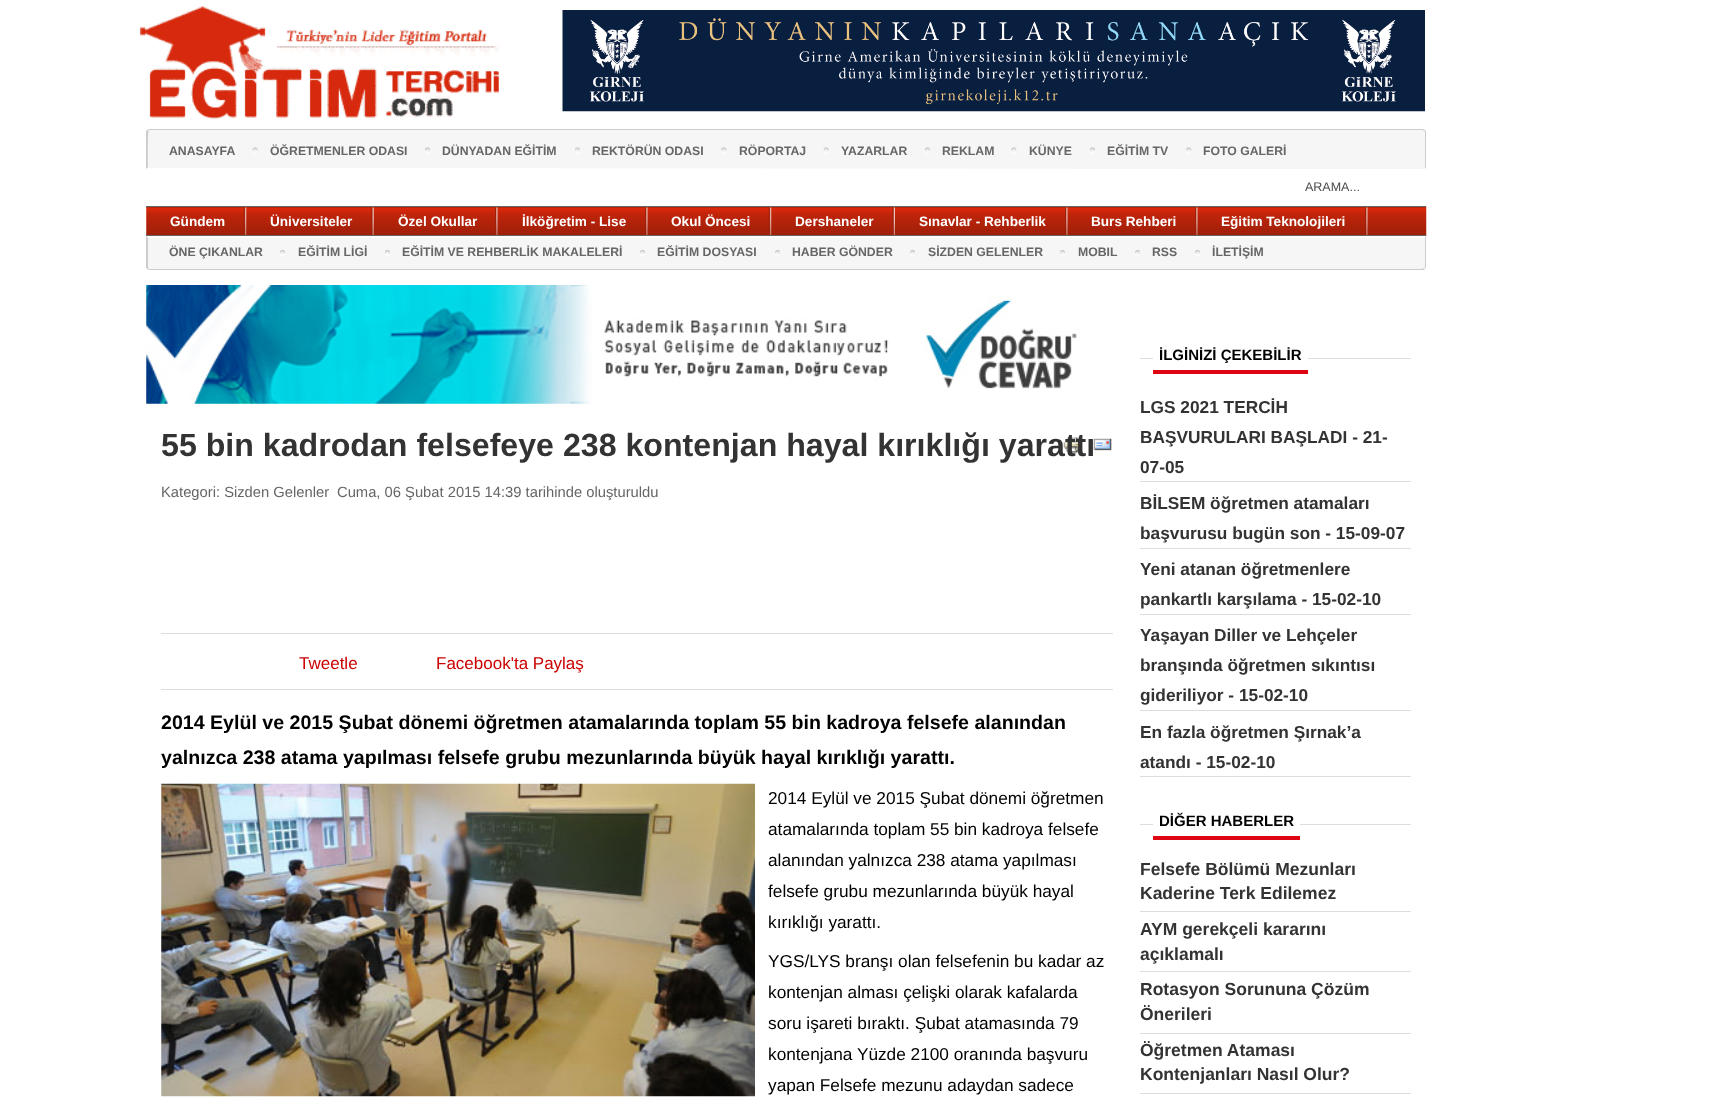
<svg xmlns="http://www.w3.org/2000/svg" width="1730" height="1105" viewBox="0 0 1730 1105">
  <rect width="100%" height="100%" fill="#fff"/>
  <image x="140" y="6" width="360" height="113" href="img/1.png"/>
  <image x="562" y="10" width="863" height="102" href="img/2.png"/>
  <path d="M150 129H1422C1424 129 1426 131 1426 133V169H146V133C146 131 148 129 150 129Z" fill="#f6f6f6"/>
  <path d="M150 129L147 130L148 131L150 130H1422L1424 131L1425 130L1422 129Z" fill="#ccc"/>
  <path d="M1426 168.5V132C1426 131 1426 130.5 1425 130L1424.5 130.5L1425 132V167.5Z" fill="#ccc"/>
  <path d="M1426 168L146 169L148 167V168H1425Z" fill="#fff"/>
  <path d="M146 169L148 167C148 163 147.5 132.5 148.5 131L147 130L146 131Z" fill="#ccc"/>
  <image x="252" y="147" width="6" height="7" href="img/3.png"/>
  <image x="425" y="147" width="5" height="7" href="img/4.png"/>
  <image x="575" y="147" width="5" height="7" href="img/4.png"/>
  <image x="721" y="147" width="6" height="7" href="img/5.png"/>
  <image x="823" y="147" width="6" height="7" href="img/6.png"/>
  <image x="925" y="147" width="5" height="7" href="img/4.png"/>
  <image x="1011" y="147" width="6" height="7" href="img/5.png"/>
  <image x="1090" y="147" width="5" height="7" href="img/4.png"/>
  <image x="1186" y="147" width="6" height="7" href="img/5.png"/>
  <image x="146" y="206" width="1281" height="31" href="img/7.png"/>
  <path d="M146 206h1280v1H146z" fill="#666"/>
  <path d="M146 235h1280v1H146z" fill="#666"/>
  <image x="243" y="207" width="4" height="28" href="img/8.png"/>
  <image x="371" y="207" width="3" height="28" href="img/9.png"/>
  <image x="495" y="207" width="3" height="28" href="img/10.png"/>
  <image x="645" y="207" width="3" height="28" href="img/10.png"/>
  <image x="768" y="207" width="4" height="28" href="img/8.png"/>
  <image x="892" y="207" width="3" height="28" href="img/11.png"/>
  <image x="1065" y="207" width="3" height="28" href="img/10.png"/>
  <image x="1195" y="207" width="3" height="28" href="img/10.png"/>
  <image x="1365" y="207" width="3" height="28" href="img/10.png"/>
  <path d="M146 236H1426V266C1426 268 1424 270 1422 270H150C148 270 146 268 146 266Z" fill="#f6f6f6"/>
  <path d="M148 238L146 236H1426L1424 238Z" fill="#fff"/>
  <path d="M1426 236.5V266C1426 267 1425.5 268 1425 269L1424.5 268C1425 267.5 1425 267 1425 266V238H1424.5Z" fill="#ccc"/>
  <path d="M150 270H1422C1423 270 1424 270 1425 269L1424 268L1422 269H149L148 268L147 269Z" fill="#ccc"/>
  <path d="M148 238V266L148.5 268L147.5 269L146 267.5V236Z" fill="#ccc"/>
  <image x="280" y="250" width="5" height="6" href="img/12.png"/>
  <image x="385" y="250" width="5" height="6" href="img/12.png"/>
  <image x="640" y="250" width="5" height="6" href="img/12.png"/>
  <image x="775" y="250" width="5" height="6" href="img/12.png"/>
  <image x="910" y="250" width="5" height="6" href="img/12.png"/>
  <image x="1060" y="250" width="5" height="6" href="img/12.png"/>
  <image x="1135" y="250" width="5" height="6" href="img/12.png"/>
  <image x="1195" y="250" width="5" height="6" href="img/12.png"/>
  <image x="146" y="285" width="931" height="119" href="img/13.png"/>
  <image x="1063" y="437" width="19" height="16" href="img/14.png"/>
  <image x="1093" y="438" width="19" height="13" href="img/15.png"/>
  <path d="M161 633h952v1H161z" fill="#ddd"/>
  <path d="M161 689h952v1H161z" fill="#ddd"/>
  <image x="161" y="783" width="594" height="314" href="img/16.png"/>
  <path d="M1140 358h271v1H1140z" fill="#dedede"/>
  <path d="M1153 358h155v1H1153z" fill="#fff"/>
  <path d="M1153 370h155v4H1153z" fill="#de0513"/>
  <path d="M1140 481h271v1H1140z" fill="#ddd"/>
  <path d="M1140 548h271v1H1140z" fill="#ddd"/>
  <path d="M1140 614h271v1H1140z" fill="#ddd"/>
  <path d="M1140 710h271v1H1140z" fill="#ddd"/>
  <path d="M1140 776h271v1H1140z" fill="#ddd"/>
  <path d="M1140 824h271v1H1140z" fill="#dedede"/>
  <path d="M1153 824h147v1H1153z" fill="#fff"/>
  <path d="M1153 836h147v4H1153z" fill="#de0513"/>
  <path d="M1140 911h271v1H1140z" fill="#ddd"/>
  <path d="M1140 971h271v1H1140z" fill="#ddd"/>
  <path d="M1140 1033h271v1H1140z" fill="#ddd"/>
  <path d="M1140 1093h271v1H1140z" fill="#ddd"/>
  <g font-family="Liberation Sans" font-size="12.25" font-weight="bold" fill="#666">
    <text x="169" y="155">ANASAYFA</text>
    <text x="270" y="155">ÖĞRETMENLER ODASI</text>
    <text x="442" y="155">DÜNYADAN EĞİTİM</text>
    <text x="592" y="155">REKTÖRÜN ODASI</text>
    <text x="739" y="155">RÖPORTAJ</text>
    <text x="841" y="155">YAZARLAR</text>
    <text x="942" y="155">REKLAM</text>
    <text x="1029" y="155">KÜNYE</text>
    <text x="1107" y="155">EĞİTİM TV</text>
    <text x="1203" y="155">FOTO GALERİ</text>
  </g>
  <text x="1305" y="191" font-family="Liberation Sans" font-size="12.5" fill="#4d4d4d">ARAMA...</text>
  <g font-family="Liberation Sans" font-size="13.6" font-weight="bold" fill="#fff">
    <text x="170" y="226">Gündem</text>
    <text x="270" y="226">Üniversiteler</text>
    <text x="398" y="226">Özel Okullar</text>
    <text x="522" y="226">İlköğretim - Lise</text>
    <text x="671" y="226">Okul Öncesi</text>
    <text x="795" y="226">Dershaneler</text>
    <text x="919" y="226">Sınavlar - Rehberlik</text>
    <text x="1091" y="226">Burs Rehberi</text>
    <text x="1221" y="226">Eğitim Teknolojileri</text>
  </g>
  <g font-family="Liberation Sans" font-size="12.25" font-weight="bold" fill="#666">
    <text x="169" y="256">ÖNE ÇIKANLAR</text>
    <text x="298" y="256">EĞİTİM LİGİ</text>
    <text x="402" y="256">EĞİTİM VE REHBERLİK MAKALELERİ</text>
    <text x="657" y="256">EĞİTİM DOSYASI</text>
    <text x="792" y="256">HABER GÖNDER</text>
    <text x="928" y="256">SİZDEN GELENLER</text>
    <text x="1078" y="256">MOBIL</text>
    <text x="1152" y="256">RSS</text>
    <text x="1212" y="256">İLETİŞİM</text>
  </g>
  <text x="161" y="456" font-family="Liberation Sans" font-size="32.15" font-weight="bold" fill="#333">55 bin kadrodan felsefeye 238 kontenjan hayal kırıklığı yarattı</text>
  <g font-family="Liberation Sans" font-size="14.75" fill="#666">
    <text x="161" y="497">Kategori: Sizden Gelenler</text>
    <text x="337" y="497">Cuma, 06 Şubat 2015 14:39 tarihinde oluşturuldu</text>
  </g>
  <g font-family="Liberation Sans" font-size="17" fill="#c00">
    <text x="299" y="669">Tweetle</text>
    <text x="436" y="669">Facebook'ta Paylaş</text>
  </g>
  <g font-family="Liberation Sans" font-size="19.6" font-weight="bold" fill="#000">
    <text x="161" y="729">2014 Eylül ve 2015 Şubat dönemi öğretmen atamalarında toplam 55 bin kadroya felsefe alanından</text>
    <text x="161" y="764">yalnızca 238 atama yapılması felsefe grubu mezunlarında büyük hayal kırıklığı yarattı.</text>
  </g>
  <g font-family="Liberation Sans" font-size="17.25" fill="#000">
    <text x="768" y="804">2014 Eylül ve 2015 Şubat dönemi öğretmen</text>
    <text x="768" y="835">atamalarında toplam 55 bin kadroya felsefe</text>
    <text x="768" y="866">alanından yalnızca 238 atama yapılması</text>
    <text x="768" y="897">felsefe grubu mezunlarında büyük hayal</text>
    <text x="768" y="928">kırıklığı yarattı.</text>
    <text x="768" y="967">YGS/LYS branşı olan felsefenin bu kadar az</text>
    <text x="768" y="998">kontenjan alması çelişki olarak kafalarda</text>
    <text x="768" y="1029">soru işareti bıraktı. Şubat atamasında 79</text>
    <text x="768" y="1060">kontenjana Yüzde 2100 oranında başvuru</text>
    <text x="768" y="1091">yapan Felsefe mezunu adaydan sadece</text>
  </g>
  <text x="1159" y="360" font-family="Liberation Sans" font-size="15" font-weight="bold" fill="#000">İLGİNİZİ ÇEKEBİLİR</text>
  <g font-family="Liberation Sans" font-size="17.3" font-weight="bold" fill="#333">
    <text x="1140" y="413">LGS 2021 TERCİH</text>
    <text x="1140" y="443">BAŞVURULARI BAŞLADI - 21-</text>
    <text x="1140" y="473">07-05</text>
    <text x="1140" y="509">BİLSEM öğretmen atamaları</text>
    <text x="1140" y="539">başvurusu bugün son - 15-09-07</text>
    <text x="1140" y="575">Yeni atanan öğretmenlere</text>
    <text x="1140" y="605">pankartlı karşılama - 15-02-10</text>
    <text x="1140" y="641">Yaşayan Diller ve Lehçeler</text>
    <text x="1140" y="671">branşında öğretmen sıkıntısı</text>
    <text x="1140" y="701">gideriliyor - 15-02-10</text>
    <text x="1140" y="738">En fazla öğretmen Şırnak’a</text>
    <text x="1140" y="768">atandı - 15-02-10</text>
  </g>
  <text x="1159" y="826" font-family="Liberation Sans" font-size="15" font-weight="bold" fill="#000">DİĞER HABERLER</text>
  <g font-family="Liberation Sans" font-size="17.5" font-weight="bold" fill="#333">
    <text x="1140" y="875">Felsefe Bölümü Mezunları</text>
    <text x="1140" y="899">Kaderine Terk Edilemez</text>
    <text x="1140" y="935">AYM gerekçeli kararını</text>
    <text x="1140" y="960">açıklamalı</text>
    <text x="1140" y="995">Rotasyon Sorununa Çözüm</text>
    <text x="1140" y="1020">Önerileri</text>
    <text x="1140" y="1056">Öğretmen Ataması</text>
    <text x="1140" y="1080">Kontenjanları Nasıl Olur?</text>
  </g>
</svg>
